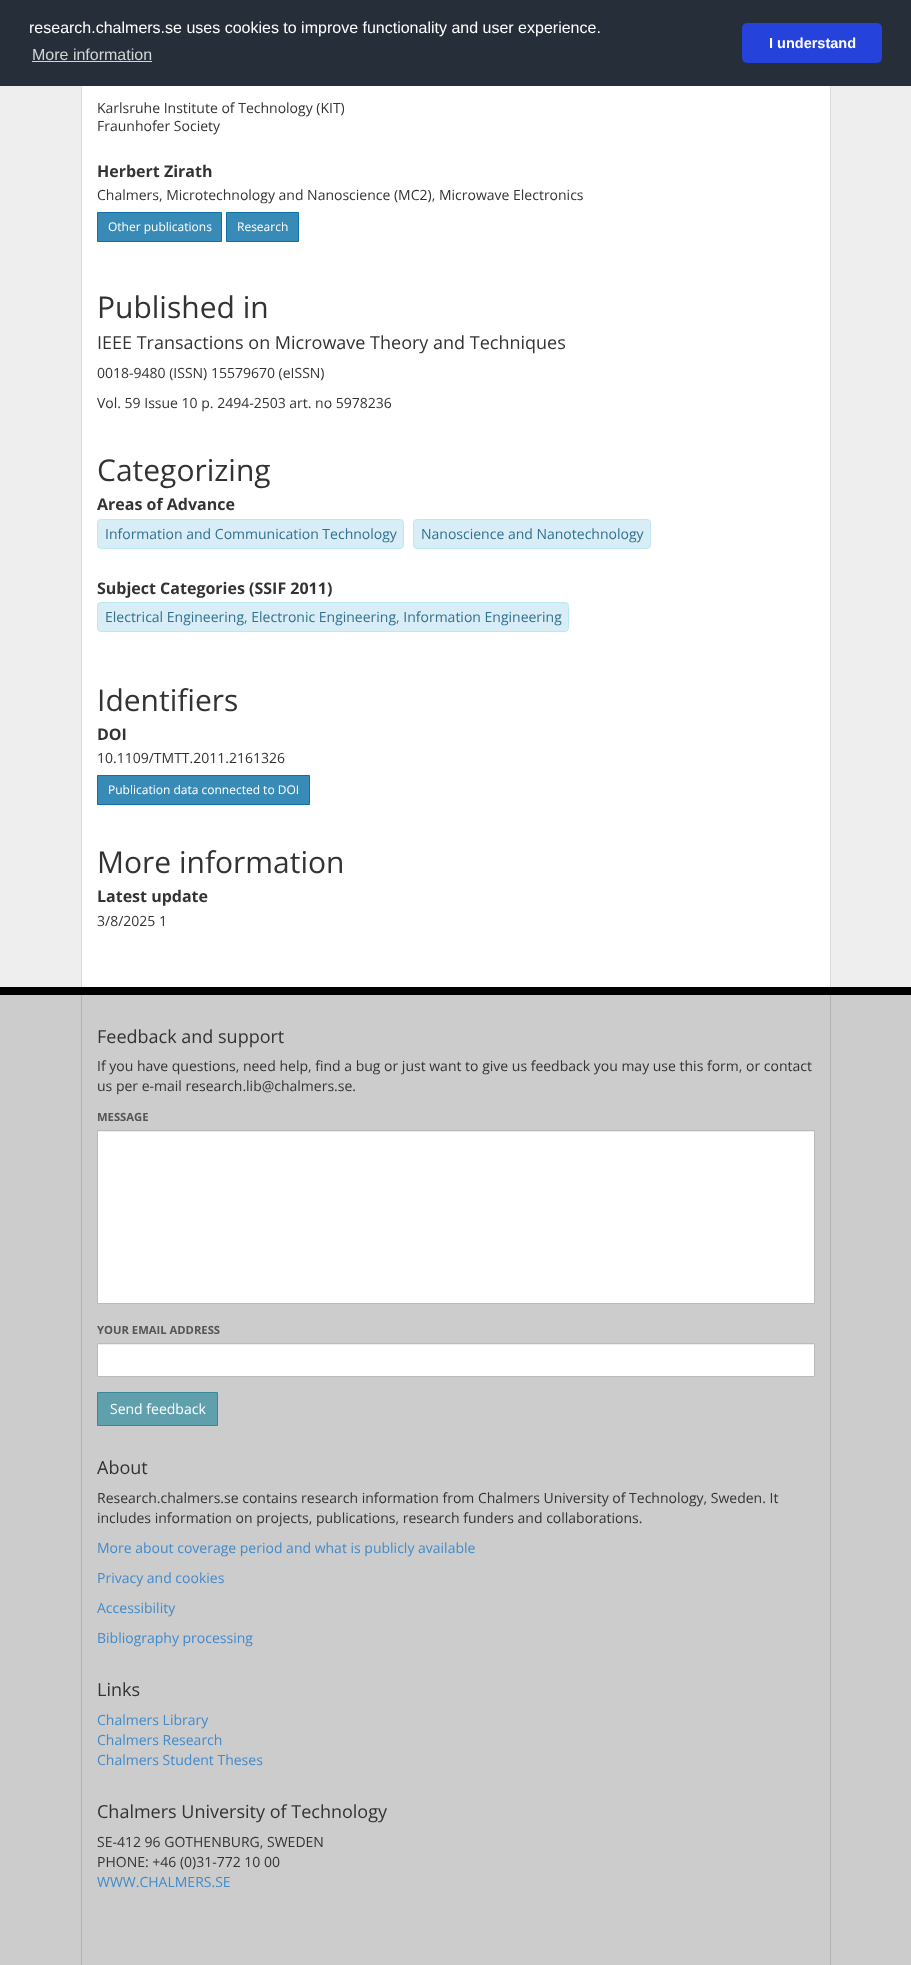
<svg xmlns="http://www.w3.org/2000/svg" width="911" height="1965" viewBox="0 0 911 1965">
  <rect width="100%" height="100%" fill="#eee"/>
  <path d="M0 0h911v86H0z" fill="#252e39"/>
  <path d="M32 61h120v1H32z" fill="#d3d5d7"/>
  <rect x="742" y="23" width="140" height="40" rx="5" fill="#2543da"/>
  <path d="M82 86h748v901H82z" fill="#fff"/>
  <path d="M830 86h1v901H830z" fill="#dcdcdc"/>
  <path d="M81 86h1v901H81z" fill="#dcdcdc"/>
  <path d="M97.5 212.5h124v29H97.5z" fill="#398bb7" stroke="#0e72a7"/>
  <path d="M226.5 212.5h72v29H226.5z" fill="#398bb7" stroke="#0e72a7"/>
  <rect x="97.5" y="519.5" width="306" height="29" rx="3.5" fill="#d9edf7" stroke="#bce8f1"/>
  <rect x="413.5" y="519.5" width="237" height="29" rx="3.5" fill="#d9edf7" stroke="#bce8f1"/>
  <rect x="97.5" y="602.5" width="471" height="29" rx="3.5" fill="#d9edf7" stroke="#bce8f1"/>
  <path d="M97.5 775.5h212v29H97.5z" fill="#398bb7" stroke="#0e72a7"/>
  <path d="M0 995h911v970H0z" fill="#ccc"/>
  <path d="M0 987h911v8H0z" fill="#000"/>
  <path d="M830 995h1v970H830z" fill="#b4b4b4"/>
  <path d="M81 995h1v970H81z" fill="#b4b4b4"/>
  <path d="M98 1132h716v171H98z" fill="#fff"/>
  <path d="M98 1131h716v1H98z" fill="#ececec"/>
  <path d="M97.5 1130.5h717v173H97.5z" fill="none" stroke="#bbb"/>
  <path d="M98 1345h716v31H98z" fill="#fff"/>
  <path d="M98 1344h716v1H98z" fill="#ececec"/>
  <path d="M97.5 1343.5h717v33H97.5z" fill="none" stroke="#bbb"/>
  <path d="M97.5 1392.5h120v33H97.5z" fill="#60a0ac" stroke="#388898"/>
  <text x="29" y="33" font-family="Liberation Sans" font-size="16" fill="#fff">research.chalmers.se uses cookies to improve functionality and user experience.</text>
  <text x="32" y="60" font-family="Liberation Sans" font-size="16" fill="#d3d5d7">More information</text>
  <text x="769" y="48" font-family="Liberation Sans" font-size="14.5" font-weight="bold" fill="#fff">I understand</text>
  <g font-family="Open Sans" font-size="14" fill="#333">
    <text x="97" y="113">Karlsruhe Institute of Technology (KIT)</text>
    <text x="97" y="131">Fraunhofer Society</text>
  </g>
  <text x="97" y="177" font-family="Open Sans" font-size="16" font-weight="bold" fill="#333">Herbert Zirath</text>
  <text x="97" y="200" font-family="Open Sans" font-size="14" fill="#333">Chalmers, Microtechnology and Nanoscience (MC2), Microwave Electronics</text>
  <g font-family="Open Sans" font-size="12" fill="#fff">
    <text x="108" y="231">Other publications</text>
    <text x="237" y="231">Research</text>
  </g>
  <text x="97" y="318" font-family="Open Sans" font-size="30" fill="#333">Published in</text>
  <text x="97" y="349" font-family="Open Sans" font-size="18" fill="#333">IEEE Transactions on Microwave Theory and Techniques</text>
  <g font-family="Open Sans" font-size="14" fill="#333">
    <text x="97" y="378">0018-9480 (ISSN) 15579670 (eISSN)</text>
    <text x="97" y="408">Vol. 59 Issue 10 p. 2494-2503 art. no 5978236</text>
  </g>
  <text x="97" y="481" font-family="Open Sans" font-size="30" fill="#333">Categorizing</text>
  <text x="97" y="510" font-family="Open Sans" font-size="16" font-weight="bold" fill="#333">Areas of Advance</text>
  <g font-family="Open Sans" font-size="14" fill="#31708f">
    <text x="105" y="539">Information and Communication Technology</text>
    <text x="421" y="539">Nanoscience and Nanotechnology</text>
  </g>
  <text x="97" y="594" font-family="Open Sans" font-size="16" font-weight="bold" fill="#333">Subject Categories (SSIF 2011)</text>
  <text x="105" y="622" font-family="Open Sans" font-size="14" fill="#31708f">Electrical Engineering, Electronic Engineering, Information Engineering</text>
  <text x="97" y="711" font-family="Open Sans" font-size="30" fill="#333">Identifiers</text>
  <text x="97" y="740" font-family="Open Sans" font-size="16" font-weight="bold" fill="#333">DOI</text>
  <text x="97" y="763" font-family="Open Sans" font-size="14" fill="#333">10.1109/TMTT.2011.2161326</text>
  <text x="108" y="794" font-family="Open Sans" font-size="12" fill="#fff">Publication data connected to DOI</text>
  <text x="97" y="873" font-family="Open Sans" font-size="30" fill="#333">More information</text>
  <text x="97" y="902" font-family="Open Sans" font-size="16" font-weight="bold" fill="#333">Latest update</text>
  <text x="97" y="926" font-family="Open Sans" font-size="14" fill="#333">3/8/2025 1</text>
  <text x="97" y="1043" font-family="Open Sans" font-size="18" fill="#333">Feedback and support</text>
  <g font-family="Open Sans" font-size="14" fill="#333">
    <text x="97" y="1071">If you have questions, need help, find a bug or just want to give us feedback you may use this form, or contact</text>
    <text x="97" y="1091">us per e-mail research.lib@chalmers.se.</text>
  </g>
  <g font-family="Open Sans" font-size="11.25" font-weight="bold" fill="#555">
    <text x="97" y="1121">MESSAGE</text>
    <text x="97" y="1334">YOUR EMAIL ADDRESS</text>
  </g>
  <text x="110" y="1414" font-family="Open Sans" font-size="14" fill="#fff">Send feedback</text>
  <text x="97" y="1474" font-family="Open Sans" font-size="18" fill="#333">About</text>
  <g font-family="Open Sans" font-size="14" fill="#333">
    <text x="97" y="1503">Research.chalmers.se contains research information from Chalmers University of Technology, Sweden. It</text>
    <text x="97" y="1523">includes information on projects, publications, research funders and collaborations.</text>
  </g>
  <g font-family="Open Sans" font-size="14" fill="#428bca">
    <text x="97" y="1553">More about coverage period and what is publicly available</text>
    <text x="97" y="1583">Privacy and cookies</text>
    <text x="97" y="1613">Accessibility</text>
    <text x="97" y="1643">Bibliography processing</text>
  </g>
  <text x="97" y="1696" font-family="Open Sans" font-size="18" fill="#333">Links</text>
  <g font-family="Open Sans" font-size="14" fill="#428bca">
    <text x="97" y="1725">Chalmers Library</text>
    <text x="97" y="1745">Chalmers Research</text>
    <text x="97" y="1765">Chalmers Student Theses</text>
  </g>
  <text x="97" y="1818" font-family="Open Sans" font-size="18" fill="#333">Chalmers University of Technology</text>
  <g font-family="Open Sans" font-size="14" fill="#333">
    <text x="97" y="1847">SE-412 96 GOTHENBURG, SWEDEN</text>
    <text x="97" y="1867">PHONE: +46 (0)31-772 10 00</text>
  </g>
  <text x="97" y="1887" font-family="Open Sans" font-size="14" fill="#428bca">WWW.CHALMERS.SE</text>
</svg>
